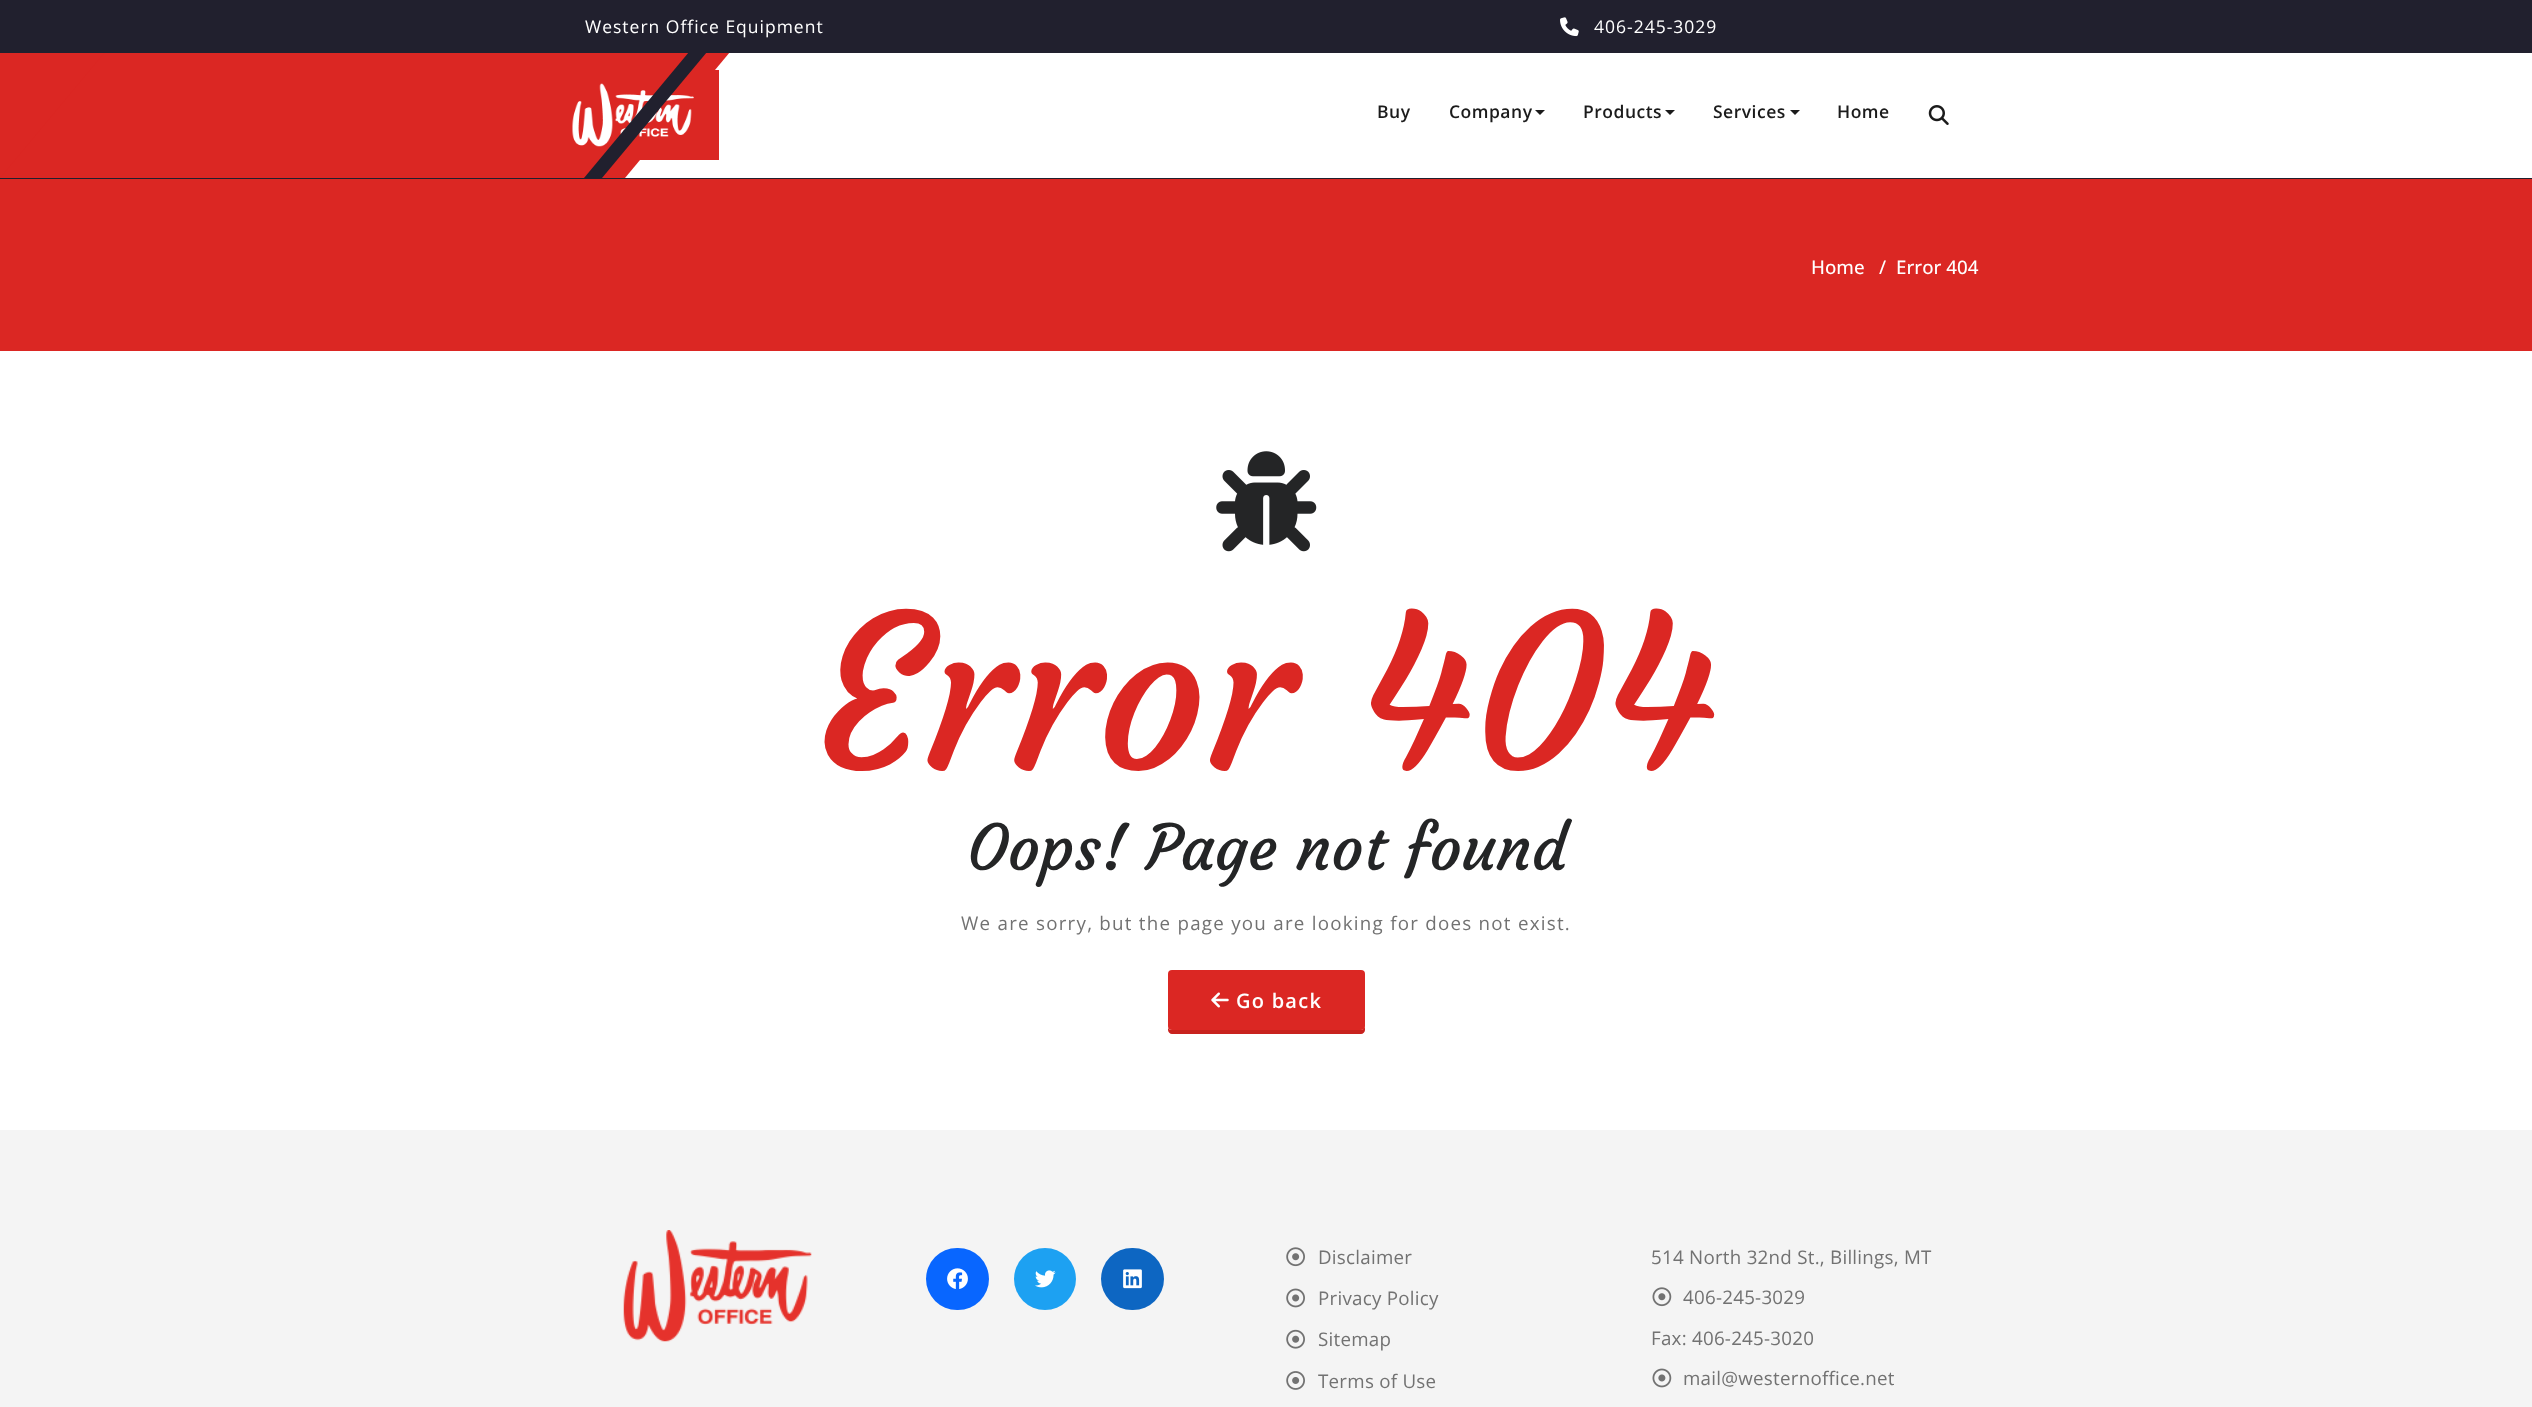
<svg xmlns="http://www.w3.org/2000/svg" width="2532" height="1407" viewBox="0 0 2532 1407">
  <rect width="100%" height="100%" fill="#fff"/>
  <path d="M0 53h105v125H0z" fill="#db2723"/>
  <path d="M105 52H730L625 178H0Z" fill="#db2723"/>
  <path d="M0 0h2532v53H0z" fill="#21202e"/>
  <image x="1560" y="17" width="19" height="20" href="img/1.png"/>
  <path d="M640 70h79v90H640z" fill="#db2723"/>
  <image x="572" y="83" width="122" height="64" href="img/2.png"/>
  <path d="M689 52H707L602 178H584Z" fill="#21202e"/>
  <path d="M1535 110H1545L1540 115Z" fill="#1b1b1b"/>
  <path d="M1665 110H1675L1670 115Z" fill="#1b1b1b"/>
  <path d="M1790 110H1800L1795 115Z" fill="#1b1b1b"/>
  <image x="1928" y="105" width="21" height="20" href="img/3.png"/>
  <path d="M0 179h2532v172H0z" fill="#db2723"/>
  <path d="M0 178h2532v1H0z" fill="#21202e"/>
  <image x="1216" y="451" width="101" height="101" href="img/4.png"/>
  <path d="M1168 1028V1030C1168 1032 1170 1034 1172 1034H1361C1363 1034 1365 1032 1365 1030V1026C1365 1028 1363 1030 1361 1030H1171C1170 1030 1169 1029 1168 1028Z" fill="#c8221e"/>
  <rect x="1168" y="970" width="197" height="60" rx="4" fill="#db2723"/>
  <image x="1211" y="992" width="18" height="16" href="img/5.png"/>
  <path d="M0 1130h2532v277H0z" fill="#f4f4f4"/>
  <image x="623" y="1230" width="189" height="112" href="img/6.png"/>
  <rect x="926" y="1248" width="63" height="62" rx="31" fill="#0866ff"/>
  <image x="947" y="1268" width="21" height="21" href="img/7.png"/>
  <circle cx="1045" cy="1279" r="31" fill="#1da1f2"/>
  <image x="1035" y="1270" width="21" height="18" href="img/8.png"/>
  <rect x="1101" y="1248" width="63" height="62" rx="31" fill="#0d66c2"/>
  <image x="1123" y="1269" width="19" height="20" href="img/9.png"/>
  <image x="1286" y="1247" width="19" height="20" href="img/10.png"/>
  <image x="1286" y="1288" width="19" height="20" href="img/11.png"/>
  <image x="1286" y="1329" width="19" height="20" href="img/12.png"/>
  <image x="1286" y="1371" width="19" height="19" href="img/13.png"/>
  <image x="1652" y="1287" width="20" height="20" href="img/14.png"/>
  <image x="1652" y="1368" width="20" height="20" href="img/15.png"/>
  <g font-family="Open Sans" font-size="17.5" letter-spacing="1" fill="#fff">
    <text x="585" y="33">Western Office Equipment</text>
    <text x="1594" y="33">406-245-3029</text>
  </g>
  <g font-family="Open Sans" font-size="17.5" font-weight="600" letter-spacing="0.5" fill="#1b1b1b">
    <text x="1377" y="118">Buy</text>
    <text x="1449" y="118">Company</text>
    <text x="1583" y="118">Products</text>
    <text x="1713" y="118">Services</text>
    <text x="1837" y="118">Home</text>
  </g>
  <g font-family="Open Sans" font-size="18.75" font-weight="500" fill="#fff">
    <text x="1811" y="274">Home</text>
    <text x="1879" y="274">/</text>
    <text x="1896" y="274">Error 404</text>
  </g>
  <text x="816" y="770" font-family="Courgette" font-size="212.5" fill="#db2723">Error 404</text>
  <text x="967" y="870" font-family="Courgette" font-size="62.5" fill="#242526">Oops! Page not found</text>
  <text x="961" y="930" font-family="Open Sans" font-size="18.75" letter-spacing="1.25" fill="#727272">We are sorry, but the page you are looking for does not exist.</text>
  <text x="1236" y="1008" font-family="Open Sans" font-size="20" font-weight="600" letter-spacing="1.25" fill="#fff">Go back</text>
  <g font-family="Open Sans" font-size="18.75" letter-spacing="0.25" fill="#727272">
    <text x="1318" y="1264">Disclaimer</text>
    <text x="1318" y="1305">Privacy Policy</text>
    <text x="1318" y="1346">Sitemap</text>
    <text x="1318" y="1388">Terms of Use</text>
    <text x="1651" y="1264">514 North 32nd St., Billings, MT</text>
    <text x="1683" y="1304">406-245-3029</text>
    <text x="1651" y="1345">Fax: 406-245-3020</text>
    <text x="1683" y="1385">mail@westernoffice.net</text>
  </g>
</svg>
